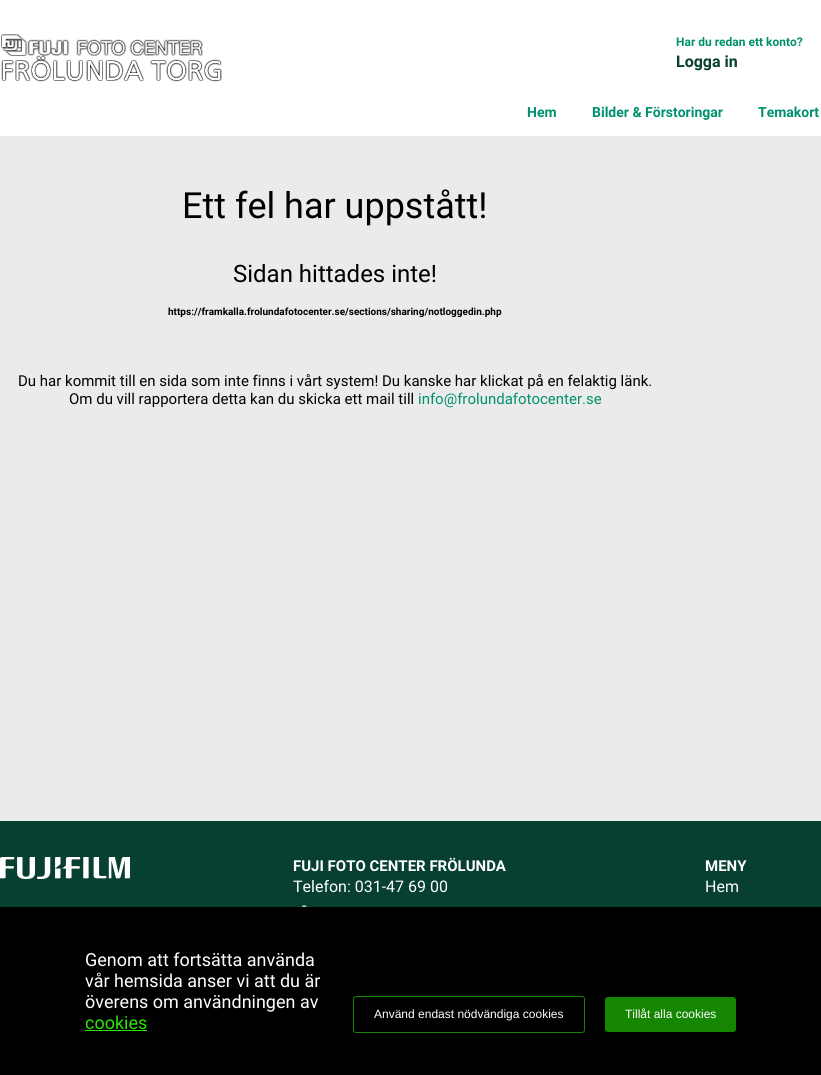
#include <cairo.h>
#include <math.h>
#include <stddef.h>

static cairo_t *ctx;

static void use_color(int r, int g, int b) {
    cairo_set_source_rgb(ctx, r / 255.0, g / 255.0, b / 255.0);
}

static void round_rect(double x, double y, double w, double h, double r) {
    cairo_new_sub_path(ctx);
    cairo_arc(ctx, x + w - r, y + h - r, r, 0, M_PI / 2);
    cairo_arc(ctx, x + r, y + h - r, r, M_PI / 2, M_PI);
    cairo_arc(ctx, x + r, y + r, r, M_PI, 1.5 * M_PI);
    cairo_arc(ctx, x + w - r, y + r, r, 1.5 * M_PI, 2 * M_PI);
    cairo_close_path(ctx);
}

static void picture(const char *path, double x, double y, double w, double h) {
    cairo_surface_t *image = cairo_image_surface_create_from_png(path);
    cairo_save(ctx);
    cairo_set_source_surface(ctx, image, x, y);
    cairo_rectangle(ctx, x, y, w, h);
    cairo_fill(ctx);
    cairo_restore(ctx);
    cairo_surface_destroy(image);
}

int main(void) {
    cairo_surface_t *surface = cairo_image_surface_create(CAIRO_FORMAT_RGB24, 821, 1075);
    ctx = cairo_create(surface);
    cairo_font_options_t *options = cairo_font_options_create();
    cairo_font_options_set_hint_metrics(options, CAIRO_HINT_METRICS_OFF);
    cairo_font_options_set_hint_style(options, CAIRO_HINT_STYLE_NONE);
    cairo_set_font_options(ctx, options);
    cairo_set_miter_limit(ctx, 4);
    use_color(235, 235, 235);
    cairo_paint(ctx);
    use_color(255, 255, 255);
    cairo_rectangle(ctx, 0, 0, 821, 136);
    cairo_fill(ctx);
    picture("img1.png", 1, 34, 221, 48);
    cairo_select_font_face(ctx, "Roboto", CAIRO_FONT_SLANT_NORMAL, CAIRO_FONT_WEIGHT_BOLD);
    cairo_set_font_size(ctx, 12);
    use_color(1, 145, 109);
    cairo_move_to(ctx, 676, 46);
    cairo_show_text(ctx, "Har du redan ett konto?");
    cairo_set_font_size(ctx, 16);
    use_color(7, 63, 49);
    cairo_move_to(ctx, 676, 67);
    cairo_show_text(ctx, "Logga in");
    cairo_set_font_size(ctx, 14);
    use_color(1, 145, 109);
    cairo_move_to(ctx, 527, 117);
    cairo_show_text(ctx, "Hem");
    cairo_move_to(ctx, 592, 117);
    cairo_show_text(ctx, "Bilder & Förstoringar");
    cairo_move_to(ctx, 758, 117);
    cairo_show_text(ctx, "Temakort");
    cairo_select_font_face(ctx, "Roboto", CAIRO_FONT_SLANT_NORMAL, CAIRO_FONT_WEIGHT_NORMAL);
    cairo_set_font_size(ctx, 36);
    use_color(0, 0, 0);
    cairo_move_to(ctx, 182, 218);
    cairo_show_text(ctx, "Ett fel har uppstått!");
    cairo_set_font_size(ctx, 24);
    cairo_move_to(ctx, 233, 282);
    cairo_show_text(ctx, "Sidan hittades inte!");
    cairo_select_font_face(ctx, "Roboto", CAIRO_FONT_SLANT_NORMAL, CAIRO_FONT_WEIGHT_BOLD);
    cairo_set_font_size(ctx, 10);
    cairo_move_to(ctx, 168, 315);
    cairo_show_text(ctx, "https://framkalla.frolundafotocenter.se/sections/sharing/notloggedin.php");
    cairo_select_font_face(ctx, "Roboto", CAIRO_FONT_SLANT_NORMAL, CAIRO_FONT_WEIGHT_NORMAL);
    cairo_set_font_size(ctx, 15);
    cairo_move_to(ctx, 18, 386);
    cairo_show_text(ctx, "Du har kommit till en sida som inte finns i vårt system! Du kanske har klickat på en felaktig länk.");
    cairo_move_to(ctx, 69, 404);
    cairo_show_text(ctx, "Om du vill rapportera detta kan du skicka ett mail till");
    use_color(1, 145, 109);
    cairo_move_to(ctx, 418, 404);
    cairo_show_text(ctx, "info@frolundafotocenter.se");
    use_color(7, 63, 49);
    cairo_rectangle(ctx, 0, 821, 821, 86);
    cairo_fill(ctx);
    picture("img2.png", 0, 857, 130, 22);
    cairo_select_font_face(ctx, "Roboto", CAIRO_FONT_SLANT_NORMAL, CAIRO_FONT_WEIGHT_BOLD);
    use_color(255, 255, 255);
    cairo_move_to(ctx, 293, 871);
    cairo_show_text(ctx, "FUJI FOTO CENTER FRÖLUNDA");
    cairo_select_font_face(ctx, "Roboto", CAIRO_FONT_SLANT_NORMAL, CAIRO_FONT_WEIGHT_NORMAL);
    cairo_set_font_size(ctx, 16);
    cairo_move_to(ctx, 293, 892);
    cairo_show_text(ctx, "Telefon: 031-47 69 00");
    cairo_move_to(ctx, 302, 911);
    cairo_show_text(ctx, "-");
    cairo_select_font_face(ctx, "Roboto", CAIRO_FONT_SLANT_NORMAL, CAIRO_FONT_WEIGHT_BOLD);
    cairo_set_font_size(ctx, 15);
    cairo_move_to(ctx, 705, 871);
    cairo_show_text(ctx, "MENY");
    cairo_select_font_face(ctx, "Roboto", CAIRO_FONT_SLANT_NORMAL, CAIRO_FONT_WEIGHT_NORMAL);
    cairo_set_font_size(ctx, 16);
    cairo_move_to(ctx, 705, 892);
    cairo_show_text(ctx, "Hem");
    use_color(0, 0, 0);
    cairo_rectangle(ctx, 0, 907, 821, 168);
    cairo_fill(ctx);
    cairo_set_font_size(ctx, 18);
    use_color(255, 255, 255);
    cairo_move_to(ctx, 85, 966);
    cairo_show_text(ctx, "Genom att fortsätta använda");
    cairo_move_to(ctx, 85, 987);
    cairo_show_text(ctx, "vår hemsida anser vi att du är");
    cairo_move_to(ctx, 85, 1008);
    cairo_show_text(ctx, "överens om användningen av");
    use_color(43, 229, 8);
    cairo_move_to(ctx, 85, 1029);
    cairo_show_text(ctx, "cookies");
    cairo_rectangle(ctx, 85, 1030, 62, 1);
    cairo_fill(ctx);
    round_rect(353.5, 996.5, 231, 36, 2.5);
    use_color(21, 134, 2);
    cairo_set_line_width(ctx, 1);
    cairo_stroke(ctx);
    cairo_select_font_face(ctx, "Liberation Sans", CAIRO_FONT_SLANT_NORMAL, CAIRO_FONT_WEIGHT_NORMAL);
    cairo_set_font_size(ctx, 12);
    use_color(255, 255, 255);
    cairo_move_to(ctx, 374, 1018);
    cairo_show_text(ctx, "Använd endast nödvändiga cookies");
    use_color(21, 134, 2);
    round_rect(605, 997, 131, 35, 3);
    cairo_fill(ctx);
    use_color(255, 255, 255);
    cairo_move_to(ctx, 625, 1018);
    cairo_show_text(ctx, "Tillåt alla cookies");
    cairo_surface_write_to_png(surface, "result.png");
    cairo_font_options_destroy(options);
    cairo_destroy(ctx);
    cairo_surface_destroy(surface);
    return 0;
}
